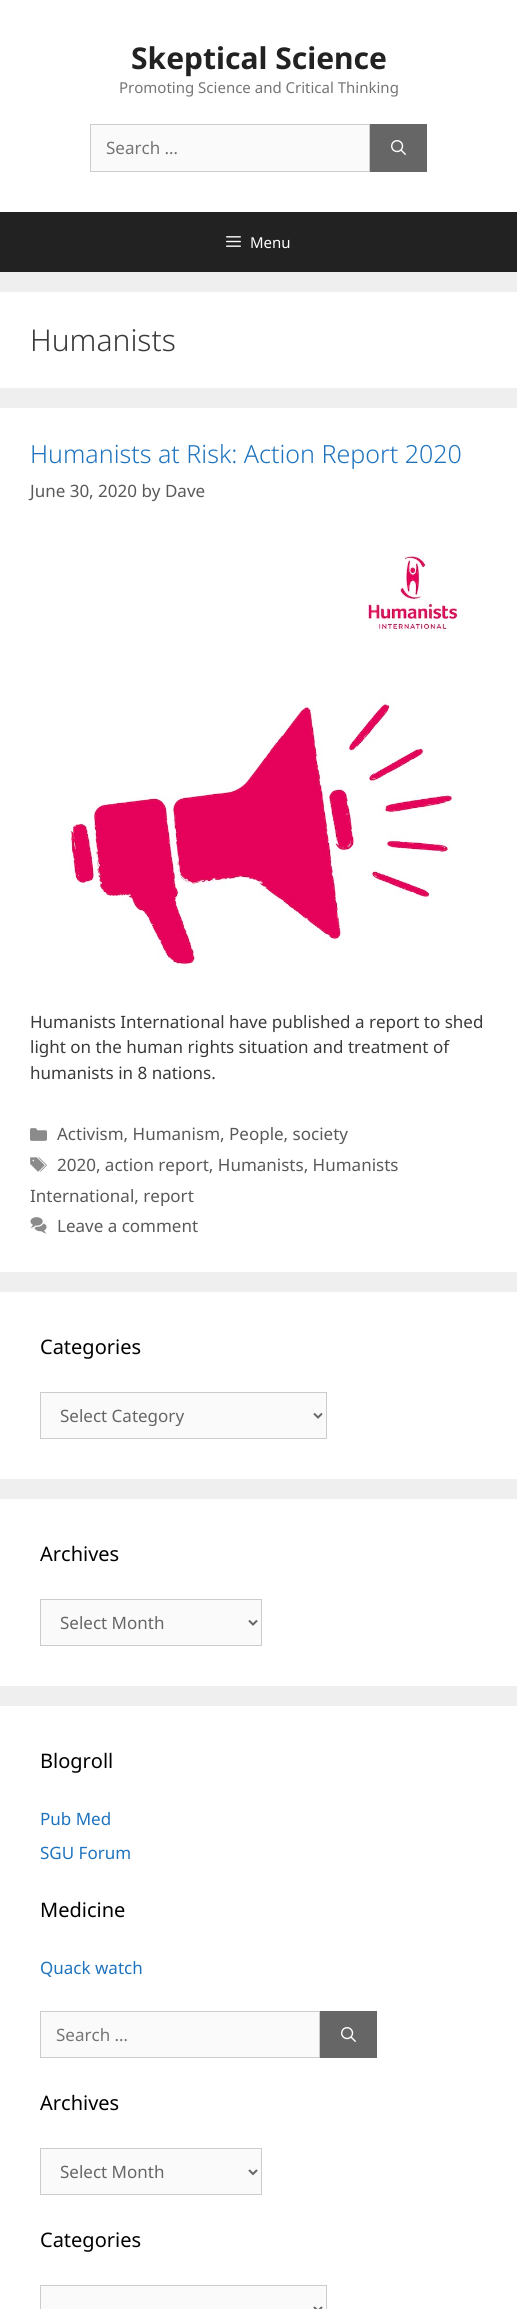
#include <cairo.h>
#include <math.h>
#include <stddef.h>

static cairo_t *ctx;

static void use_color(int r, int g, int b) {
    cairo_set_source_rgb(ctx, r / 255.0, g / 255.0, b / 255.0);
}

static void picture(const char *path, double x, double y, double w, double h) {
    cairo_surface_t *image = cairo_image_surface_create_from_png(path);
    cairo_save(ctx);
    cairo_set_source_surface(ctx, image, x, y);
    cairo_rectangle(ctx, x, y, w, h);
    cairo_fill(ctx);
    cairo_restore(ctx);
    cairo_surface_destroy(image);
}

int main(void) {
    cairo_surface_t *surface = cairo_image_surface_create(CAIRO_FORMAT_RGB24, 517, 2309);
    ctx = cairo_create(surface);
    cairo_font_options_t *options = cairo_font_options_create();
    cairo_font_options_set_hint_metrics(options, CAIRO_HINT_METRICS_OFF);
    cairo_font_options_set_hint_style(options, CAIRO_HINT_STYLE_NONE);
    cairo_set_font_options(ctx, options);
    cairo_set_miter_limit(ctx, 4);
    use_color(239, 239, 239);
    cairo_paint(ctx);
    use_color(255, 255, 255);
    cairo_rectangle(ctx, 0, 0, 517, 212);
    cairo_fill(ctx);
    cairo_select_font_face(ctx, "Noto Sans", CAIRO_FONT_SLANT_NORMAL, CAIRO_FONT_WEIGHT_BOLD);
    cairo_set_font_size(ctx, 30);
    use_color(34, 34, 34);
    cairo_move_to(ctx, 131, 69);
    cairo_show_text(ctx, "Skeptical Science");
    cairo_select_font_face(ctx, "Noto Sans", CAIRO_FONT_SLANT_NORMAL, CAIRO_FONT_WEIGHT_NORMAL);
    cairo_set_font_size(ctx, 15);
    use_color(117, 117, 117);
    cairo_move_to(ctx, 119, 93);
    cairo_show_text(ctx, "Promoting Science and Critical Thinking");
    use_color(250, 250, 250);
    cairo_rectangle(ctx, 90.5, 124.5, 279, 47);
    cairo_fill_preserve(ctx);
    use_color(204, 204, 204);
    cairo_set_line_width(ctx, 1);
    cairo_stroke(ctx);
    cairo_set_font_size(ctx, 17);
    use_color(117, 117, 117);
    cairo_move_to(ctx, 106, 154);
    cairo_show_text(ctx, "Search …");
    use_color(102, 102, 102);
    cairo_rectangle(ctx, 370, 124, 57, 48);
    cairo_fill(ctx);
    picture("img1.png", 391, 140, 15, 15);
    use_color(34, 34, 34);
    cairo_rectangle(ctx, 0, 212, 517, 60);
    cairo_fill(ctx);
    picture("img2.png", 226, 236, 15, 11);
    cairo_set_font_size(ctx, 15);
    use_color(255, 255, 255);
    cairo_move_to(ctx, 250, 248);
    cairo_show_text(ctx, "Menu");
    cairo_rectangle(ctx, 0, 292, 517, 96);
    cairo_fill(ctx);
    cairo_select_font_face(ctx, "Noto Sans Light", CAIRO_FONT_SLANT_NORMAL, CAIRO_FONT_WEIGHT_NORMAL);
    cairo_set_font_size(ctx, 30);
    use_color(58, 58, 58);
    cairo_move_to(ctx, 30, 351);
    cairo_show_text(ctx, "Humanists");
    use_color(255, 255, 255);
    cairo_rectangle(ctx, 0, 408, 517, 864);
    cairo_fill(ctx);
    cairo_set_font_size(ctx, 25);
    use_color(30, 115, 190);
    cairo_move_to(ctx, 30, 463);
    cairo_show_text(ctx, "Humanists at Risk: Action Report 2020");
    cairo_select_font_face(ctx, "Noto Sans", CAIRO_FONT_SLANT_NORMAL, CAIRO_FONT_WEIGHT_NORMAL);
    cairo_set_font_size(ctx, 17);
    use_color(89, 89, 89);
    cairo_move_to(ctx, 30, 497);
    cairo_show_text(ctx, "June 30, 2020 by Dave");
    picture("img3.png", 67, 552, 392, 416);
    use_color(58, 58, 58);
    cairo_move_to(ctx, 30, 1028);
    cairo_show_text(ctx, "Humanists International have published a report to shed");
    cairo_move_to(ctx, 30, 1053);
    cairo_show_text(ctx, "light on the human rights situation and treatment of");
    cairo_move_to(ctx, 30, 1079);
    cairo_show_text(ctx, "humanists in 8 nations.");
    picture("img4.png", 30, 1128, 17, 13);
    use_color(89, 89, 89);
    cairo_move_to(ctx, 57, 1140);
    cairo_show_text(ctx, "Activism, Humanism, People, society");
    picture("img5.png", 30, 1157, 17, 15);
    cairo_move_to(ctx, 57, 1171);
    cairo_show_text(ctx, "2020, action report, Humanists, Humanists");
    cairo_move_to(ctx, 30, 1202);
    cairo_show_text(ctx, "International, report");
    picture("img6.png", 30, 1217, 17, 17);
    cairo_move_to(ctx, 57, 1232);
    cairo_show_text(ctx, "Leave a comment");
    use_color(255, 255, 255);
    cairo_rectangle(ctx, 0, 1292, 517, 187);
    cairo_fill(ctx);
    cairo_set_font_size(ctx, 20);
    use_color(0, 0, 0);
    cairo_move_to(ctx, 40, 1354);
    cairo_show_text(ctx, "Categories");
    use_color(250, 250, 250);
    cairo_rectangle(ctx, 40.5, 1392.5, 286, 46);
    cairo_fill_preserve(ctx);
    use_color(204, 204, 204);
    cairo_stroke(ctx);
    cairo_new_path(ctx);
    cairo_move_to(ctx, 314, 1413.5);
    cairo_line_to(ctx, 318, 1417.5);
    cairo_line_to(ctx, 322, 1413.5);
    use_color(102, 102, 102);
    cairo_set_line_width(ctx, 2);
    cairo_stroke(ctx);
    cairo_set_font_size(ctx, 17);
    cairo_move_to(ctx, 60, 1422);
    cairo_show_text(ctx, "Select Category");
    use_color(255, 255, 255);
    cairo_rectangle(ctx, 0, 1499, 517, 187);
    cairo_fill(ctx);
    cairo_set_font_size(ctx, 20);
    use_color(0, 0, 0);
    cairo_move_to(ctx, 40, 1561);
    cairo_show_text(ctx, "Archives");
    use_color(250, 250, 250);
    cairo_rectangle(ctx, 40.5, 1599.5, 221, 46);
    cairo_fill_preserve(ctx);
    use_color(204, 204, 204);
    cairo_set_line_width(ctx, 1);
    cairo_stroke(ctx);
    cairo_new_path(ctx);
    cairo_move_to(ctx, 249, 1620.5);
    cairo_line_to(ctx, 253, 1624.5);
    cairo_line_to(ctx, 257, 1620.5);
    use_color(102, 102, 102);
    cairo_set_line_width(ctx, 2);
    cairo_stroke(ctx);
    cairo_set_font_size(ctx, 17);
    cairo_move_to(ctx, 60, 1629);
    cairo_show_text(ctx, "Select Month");
    use_color(255, 255, 255);
    cairo_rectangle(ctx, 0, 1706, 517, 603);
    cairo_fill(ctx);
    cairo_set_font_size(ctx, 20);
    use_color(0, 0, 0);
    cairo_move_to(ctx, 40, 1768);
    cairo_show_text(ctx, "Blogroll");
    cairo_set_font_size(ctx, 17);
    use_color(30, 115, 190);
    cairo_move_to(ctx, 40, 1825);
    cairo_show_text(ctx, "Pub Med");
    cairo_move_to(ctx, 40, 1859);
    cairo_show_text(ctx, "SGU Forum");
    cairo_set_font_size(ctx, 20);
    use_color(0, 0, 0);
    cairo_move_to(ctx, 40, 1917);
    cairo_show_text(ctx, "Medicine");
    cairo_set_font_size(ctx, 17);
    use_color(30, 115, 190);
    cairo_move_to(ctx, 40, 1974);
    cairo_show_text(ctx, "Quack watch");
    use_color(250, 250, 250);
    cairo_rectangle(ctx, 40.5, 2011.5, 279, 46);
    cairo_fill_preserve(ctx);
    use_color(204, 204, 204);
    cairo_set_line_width(ctx, 1);
    cairo_stroke(ctx);
    use_color(117, 117, 117);
    cairo_move_to(ctx, 56, 2041);
    cairo_show_text(ctx, "Search …");
    use_color(102, 102, 102);
    cairo_rectangle(ctx, 320, 2011, 57, 47);
    cairo_fill(ctx);
    picture("img1.png", 341, 2027, 15, 15);
    cairo_set_font_size(ctx, 20);
    use_color(0, 0, 0);
    cairo_move_to(ctx, 40, 2110);
    cairo_show_text(ctx, "Archives");
    use_color(250, 250, 250);
    cairo_rectangle(ctx, 40.5, 2148.5, 221, 46);
    cairo_fill_preserve(ctx);
    use_color(204, 204, 204);
    cairo_stroke(ctx);
    cairo_new_path(ctx);
    cairo_move_to(ctx, 249, 2170);
    cairo_line_to(ctx, 253, 2174);
    cairo_line_to(ctx, 257, 2170);
    use_color(102, 102, 102);
    cairo_set_line_width(ctx, 2);
    cairo_stroke(ctx);
    cairo_set_font_size(ctx, 17);
    cairo_move_to(ctx, 60, 2178);
    cairo_show_text(ctx, "Select Month");
    cairo_set_font_size(ctx, 20);
    use_color(0, 0, 0);
    cairo_move_to(ctx, 40, 2247);
    cairo_show_text(ctx, "Categories");
    use_color(250, 250, 250);
    cairo_rectangle(ctx, 40.5, 2285.5, 286, 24);
    cairo_fill_preserve(ctx);
    use_color(204, 204, 204);
    cairo_set_line_width(ctx, 1);
    cairo_stroke(ctx);
    cairo_new_path(ctx);
    cairo_move_to(ctx, 314, 2307);
    cairo_line_to(ctx, 318, 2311);
    cairo_line_to(ctx, 322, 2307);
    use_color(102, 102, 102);
    cairo_set_line_width(ctx, 2);
    cairo_stroke(ctx);
    cairo_surface_write_to_png(surface, "result.png");
    cairo_font_options_destroy(options);
    cairo_destroy(ctx);
    cairo_surface_destroy(surface);
    return 0;
}
